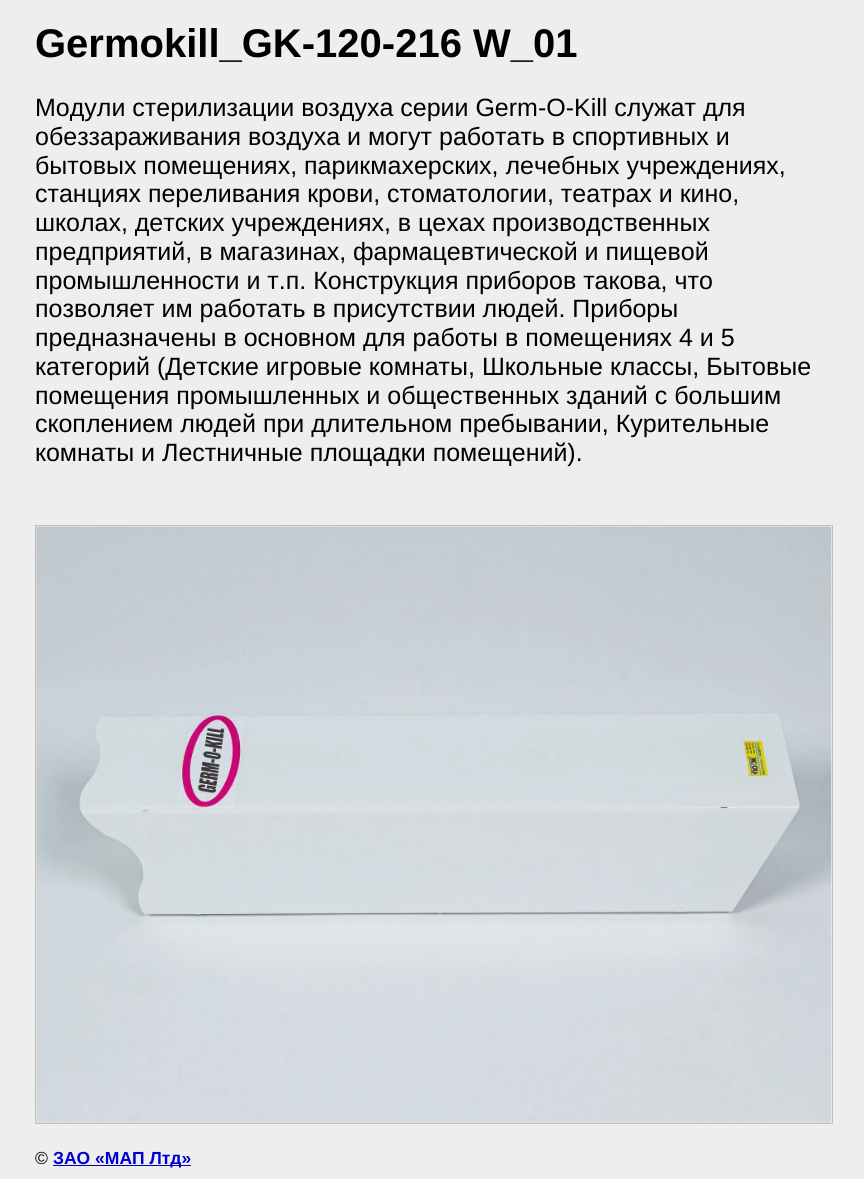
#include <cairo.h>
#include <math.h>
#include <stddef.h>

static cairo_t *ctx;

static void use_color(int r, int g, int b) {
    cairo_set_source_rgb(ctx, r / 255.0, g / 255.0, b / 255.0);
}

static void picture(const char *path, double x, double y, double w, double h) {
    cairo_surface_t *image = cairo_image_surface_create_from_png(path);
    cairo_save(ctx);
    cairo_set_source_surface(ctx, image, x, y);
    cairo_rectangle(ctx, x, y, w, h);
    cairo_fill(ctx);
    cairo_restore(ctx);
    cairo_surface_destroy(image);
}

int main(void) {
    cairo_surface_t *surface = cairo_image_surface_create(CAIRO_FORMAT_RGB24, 864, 1179);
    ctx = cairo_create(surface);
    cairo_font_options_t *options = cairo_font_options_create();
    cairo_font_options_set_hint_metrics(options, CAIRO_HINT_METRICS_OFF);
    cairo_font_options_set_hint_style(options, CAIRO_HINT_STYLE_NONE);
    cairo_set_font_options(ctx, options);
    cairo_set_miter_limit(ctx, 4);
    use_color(238, 238, 238);
    cairo_paint(ctx);
    cairo_select_font_face(ctx, "Liberation Sans", CAIRO_FONT_SLANT_NORMAL, CAIRO_FONT_WEIGHT_BOLD);
    cairo_set_font_size(ctx, 40);
    use_color(0, 0, 0);
    cairo_move_to(ctx, 35, 57);
    cairo_show_text(ctx, "Germokill_GK-120-216 W_01");
    cairo_select_font_face(ctx, "Liberation Sans", CAIRO_FONT_SLANT_NORMAL, CAIRO_FONT_WEIGHT_NORMAL);
    cairo_set_font_size(ctx, 25);
    cairo_move_to(ctx, 35, 116);
    cairo_show_text(ctx, "Модули стерилизации воздуха серии Germ-O-Kill служат для");
    cairo_move_to(ctx, 35, 145);
    cairo_show_text(ctx, "обеззараживания воздуха и могут работать в спортивных и");
    cairo_move_to(ctx, 35, 174);
    cairo_show_text(ctx, "бытовых помещениях, парикмахерских, лечебных учреждениях,");
    cairo_move_to(ctx, 35, 202);
    cairo_show_text(ctx, "станциях переливания крови, стоматологии, театрах и кино,");
    cairo_move_to(ctx, 35, 231);
    cairo_show_text(ctx, "школах, детских учреждениях, в цехах производственных");
    cairo_move_to(ctx, 35, 260);
    cairo_show_text(ctx, "предприятий, в магазинах, фармацевтической и пищевой");
    cairo_move_to(ctx, 35, 289);
    cairo_show_text(ctx, "промышленности и т.п. Конструкция приборов такова, что");
    cairo_move_to(ctx, 35, 317);
    cairo_show_text(ctx, "позволяет им работать в присутствии людей. Приборы");
    cairo_move_to(ctx, 35, 346);
    cairo_show_text(ctx, "предназначены в основном для работы в помещениях 4 и 5");
    cairo_move_to(ctx, 35, 375);
    cairo_show_text(ctx, "категорий (Детские игровые комнаты, Школьные классы, Бытовые");
    cairo_move_to(ctx, 35, 404);
    cairo_show_text(ctx, "помещения промышленных и общественных зданий с большим");
    cairo_move_to(ctx, 35, 432);
    cairo_show_text(ctx, "скоплением людей при длительном пребывании, Курительные");
    cairo_move_to(ctx, 35, 461);
    cairo_show_text(ctx, "комнаты и Лестничные площадки помещений).");
    cairo_rectangle(ctx, 35.5, 525.5, 797, 598);
    use_color(192, 192, 192);
    cairo_set_line_width(ctx, 1);
    cairo_stroke(ctx);
    picture("img1.png", 36, 526, 796, 597);
    cairo_set_font_size(ctx, 17.5);
    use_color(0, 0, 0);
    cairo_move_to(ctx, 35, 1164);
    cairo_show_text(ctx, "©");
    use_color(0, 0, 204);
    cairo_rectangle(ctx, 53, 1165, 138, 1);
    cairo_fill(ctx);
    cairo_select_font_face(ctx, "Liberation Sans", CAIRO_FONT_SLANT_NORMAL, CAIRO_FONT_WEIGHT_BOLD);
    cairo_move_to(ctx, 53, 1164);
    cairo_show_text(ctx, "ЗАО «МАП Лтд»");
    cairo_surface_write_to_png(surface, "result.png");
    cairo_font_options_destroy(options);
    cairo_destroy(ctx);
    cairo_surface_destroy(surface);
    return 0;
}
